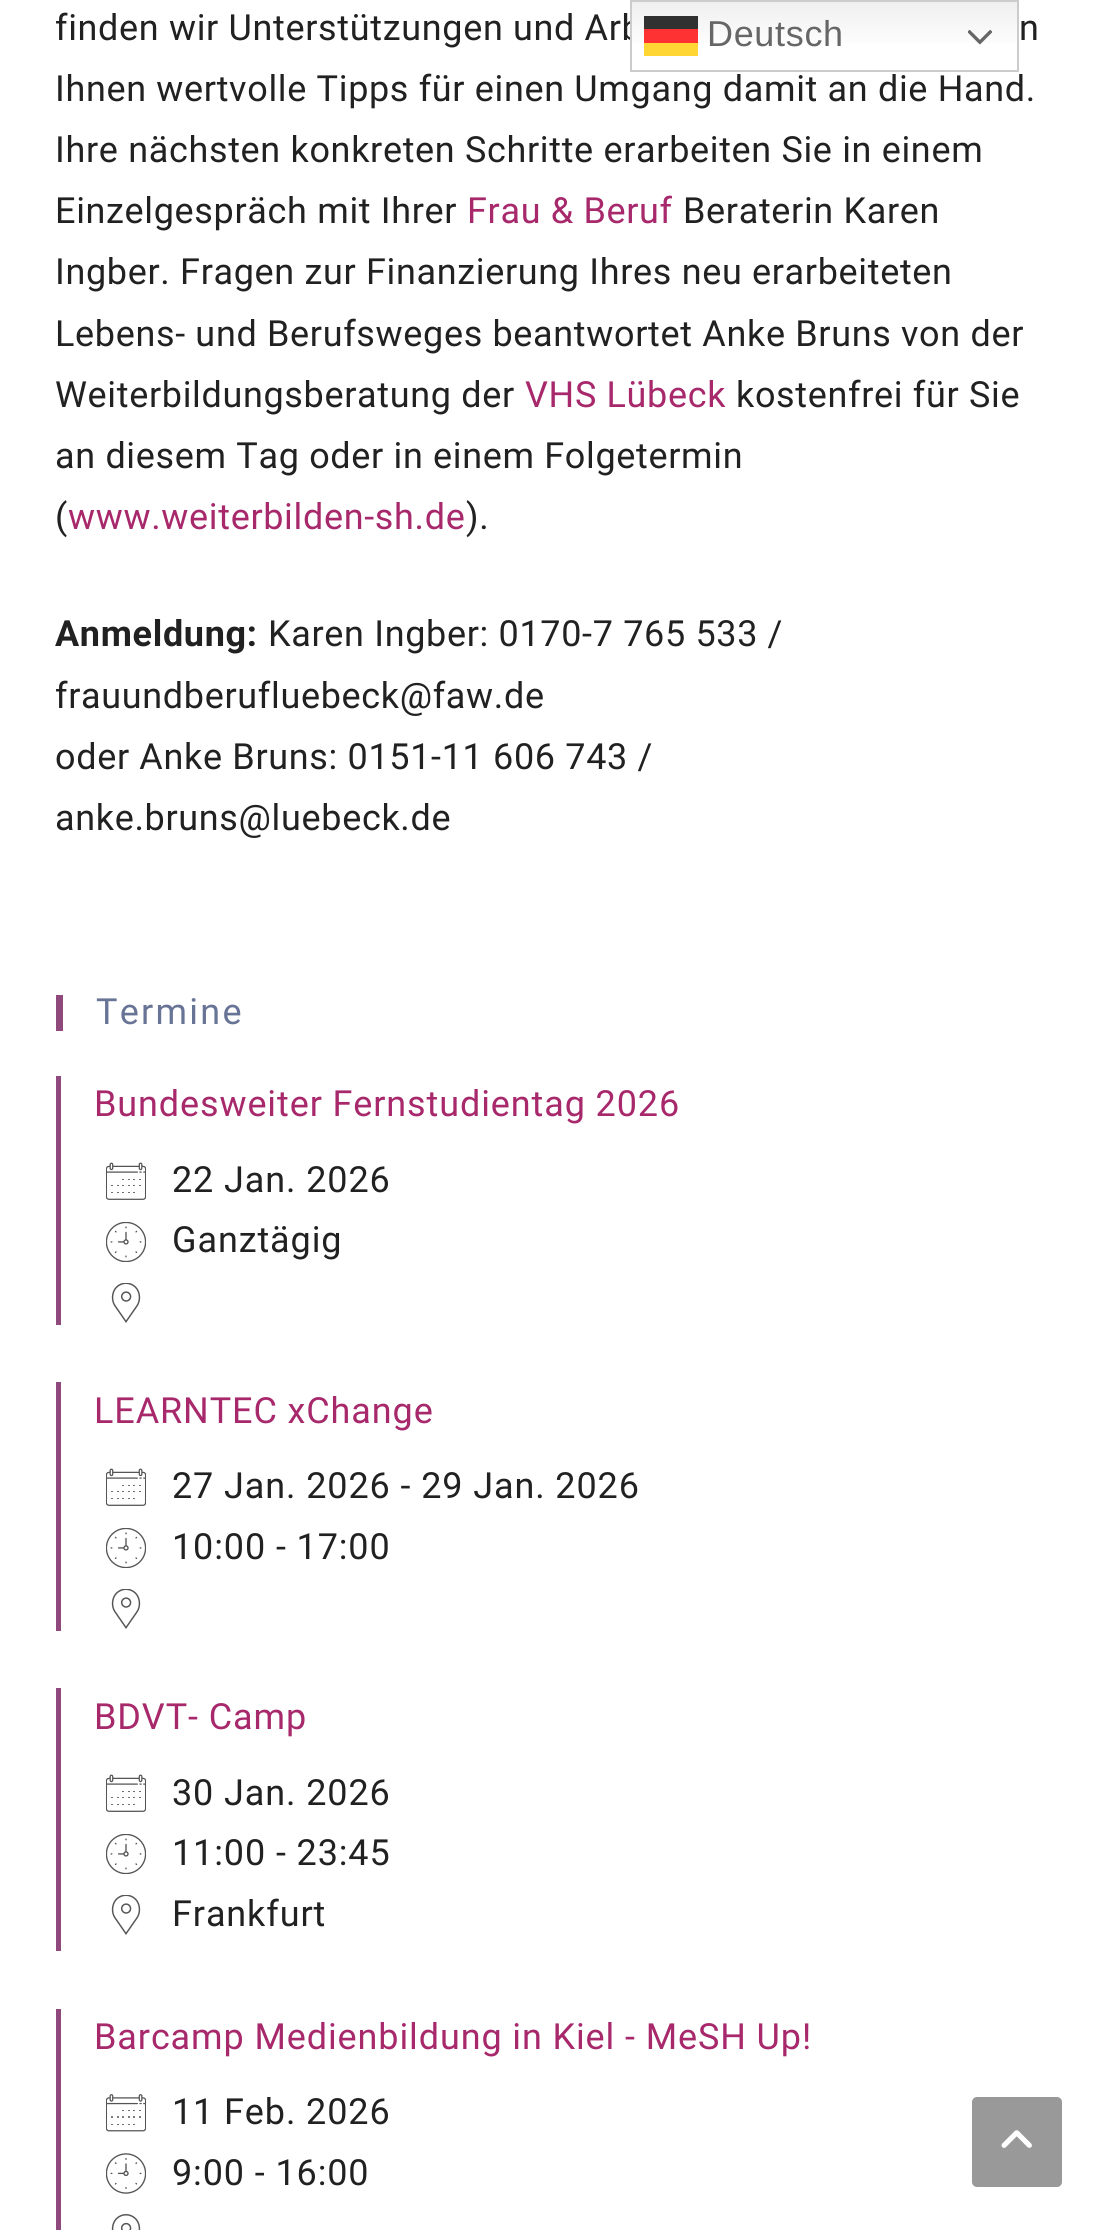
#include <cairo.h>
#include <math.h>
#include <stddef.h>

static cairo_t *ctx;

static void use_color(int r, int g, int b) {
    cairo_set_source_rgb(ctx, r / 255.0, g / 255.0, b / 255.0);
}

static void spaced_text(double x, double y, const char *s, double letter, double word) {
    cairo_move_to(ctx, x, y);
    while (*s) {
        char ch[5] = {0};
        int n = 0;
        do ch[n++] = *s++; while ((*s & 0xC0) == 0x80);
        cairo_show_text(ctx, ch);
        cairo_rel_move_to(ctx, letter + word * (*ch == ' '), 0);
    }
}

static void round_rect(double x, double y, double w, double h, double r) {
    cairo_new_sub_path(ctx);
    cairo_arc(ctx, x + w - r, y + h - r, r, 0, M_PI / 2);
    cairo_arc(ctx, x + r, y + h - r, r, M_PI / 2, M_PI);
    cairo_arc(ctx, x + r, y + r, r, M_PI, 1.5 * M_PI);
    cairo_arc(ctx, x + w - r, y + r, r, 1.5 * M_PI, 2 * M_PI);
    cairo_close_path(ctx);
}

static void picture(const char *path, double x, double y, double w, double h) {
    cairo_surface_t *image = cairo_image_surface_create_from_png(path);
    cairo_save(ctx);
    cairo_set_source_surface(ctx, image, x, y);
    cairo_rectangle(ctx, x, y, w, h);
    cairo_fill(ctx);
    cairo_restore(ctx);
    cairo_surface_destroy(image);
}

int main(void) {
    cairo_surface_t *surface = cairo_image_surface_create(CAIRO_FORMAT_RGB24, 1106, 2230);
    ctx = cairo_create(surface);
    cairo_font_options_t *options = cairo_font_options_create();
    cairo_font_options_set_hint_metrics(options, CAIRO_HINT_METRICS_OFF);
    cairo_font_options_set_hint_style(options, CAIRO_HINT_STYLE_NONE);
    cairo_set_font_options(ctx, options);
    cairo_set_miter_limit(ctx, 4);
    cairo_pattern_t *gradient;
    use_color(255, 255, 255);
    cairo_paint(ctx);
    cairo_select_font_face(ctx, "Roboto", CAIRO_FONT_SLANT_NORMAL, CAIRO_FONT_WEIGHT_NORMAL);
    cairo_set_font_size(ctx, 36);
    use_color(33, 33, 33);
    spaced_text(55, 40, "finden wir Unterstützungen und Arb", 0.67, 0);
    spaced_text(1019, 40, "n", 0.67, 0);
    spaced_text(55, 101, "Ihnen wertvolle Tipps für einen Umgang damit an die Hand.", 0.67, 0);
    spaced_text(55, 162, "Ihre nächsten konkreten Schritte erarbeiten Sie in einem", 0.67, 0);
    spaced_text(55, 223, "Einzelgespräch mit Ihrer", 0.67, 0);
    use_color(167, 40, 107);
    spaced_text(467, 223, "Frau & Beruf", 0.67, 0);
    use_color(33, 33, 33);
    spaced_text(683, 223, "Beraterin Karen", 0.67, 0);
    spaced_text(55, 284, "Ingber. Fragen zur Finanzierung Ihres neu erarbeiteten", 0.67, 0);
    spaced_text(55, 346, "Lebens- und Berufsweges beantwortet Anke Bruns von der", 0.67, 0);
    spaced_text(55, 407, "Weiterbildungsberatung der", 0.67, 0);
    use_color(167, 40, 107);
    spaced_text(525, 407, "VHS Lübeck", 0.67, 0);
    use_color(33, 33, 33);
    spaced_text(736, 407, "kostenfrei für Sie", 0.67, 0);
    spaced_text(55, 468, "an diesem Tag oder in einem Folgetermin", 0.67, 0);
    spaced_text(55, 529, "(", 0.67, 0);
    use_color(167, 40, 107);
    spaced_text(68, 529, "www.weiterbilden-sh.de", 0.67, 0);
    use_color(33, 33, 33);
    spaced_text(466, 529, ").", 0.67, 0);
    cairo_select_font_face(ctx, "Roboto", CAIRO_FONT_SLANT_NORMAL, CAIRO_FONT_WEIGHT_BOLD);
    spaced_text(55, 646, "Anmeldung:", 0.67, 0);
    cairo_select_font_face(ctx, "Roboto", CAIRO_FONT_SLANT_NORMAL, CAIRO_FONT_WEIGHT_NORMAL);
    spaced_text(268, 646, "Karen Ingber: 0170-7 765 533 /", 0.67, 0);
    spaced_text(55, 708, "frauundberufluebeck@faw.de", 0.67, 0);
    spaced_text(55, 769, "oder Anke Bruns: 0151-11 606 743 /", 0.67, 0);
    spaced_text(55, 830, "anke.bruns@luebeck.de", 0.67, 0);
    use_color(143, 73, 125);
    cairo_rectangle(ctx, 56, 995, 7, 36);
    cairo_fill(ctx);
    use_color(104, 116, 150);
    spaced_text(96, 1024, "Termine", 2.25, 0);
    use_color(143, 73, 125);
    cairo_rectangle(ctx, 56, 1076, 5, 249);
    cairo_fill(ctx);
    use_color(167, 40, 107);
    spaced_text(94, 1116, "Bundesweiter Fernstudientag 2026", 0.9, 0);
    picture("img1.png", 106, 1162, 40, 38);
    use_color(33, 33, 33);
    spaced_text(172, 1192, "22 Jan. 2026", 0.9, 0);
    picture("img2.png", 106, 1222, 40, 40);
    spaced_text(172, 1252, "Ganztägig", 0.9, 0);
    picture("img3.png", 111, 1283, 30, 40);
    use_color(143, 73, 125);
    cairo_rectangle(ctx, 56, 1382, 5, 249);
    cairo_fill(ctx);
    use_color(167, 40, 107);
    spaced_text(94, 1423, "LEARNTEC xChange", 0.9, 0);
    picture("img1.png", 106, 1468, 40, 38);
    use_color(33, 33, 33);
    spaced_text(172, 1498, "27 Jan. 2026 - 29 Jan. 2026", 0.9, 0);
    picture("img2.png", 106, 1528, 40, 40);
    spaced_text(172, 1559, "10:00 - 17:00", 0.9, 0);
    picture("img3.png", 111, 1589, 30, 40);
    use_color(143, 73, 125);
    cairo_rectangle(ctx, 56, 1688, 5, 263);
    cairo_fill(ctx);
    use_color(167, 40, 107);
    spaced_text(94, 1729, "BDVT- Camp", 0.9, 0);
    picture("img1.png", 106, 1774, 40, 38);
    use_color(33, 33, 33);
    spaced_text(172, 1805, "30 Jan. 2026", 0.9, 0);
    picture("img2.png", 106, 1834, 40, 40);
    spaced_text(172, 1865, "11:00 - 23:45", 0.9, 0);
    picture("img3.png", 111, 1895, 30, 40);
    spaced_text(172, 1926, "Frankfurt", 0.9, 0);
    use_color(143, 73, 125);
    cairo_rectangle(ctx, 56, 2009, 5, 221);
    cairo_fill(ctx);
    use_color(167, 40, 107);
    spaced_text(94, 2049, "Barcamp Medienbildung in Kiel - MeSH Up!", 0.9, 0);
    picture("img4.png", 106, 2094, 40, 38);
    use_color(33, 33, 33);
    spaced_text(172, 2124, "11 Feb. 2026", 0.9, 0);
    picture("img5.png", 106, 2153, 40, 41);
    spaced_text(172, 2185, "9:00 - 16:00", 0.9, 0);
    picture("img6.png", 111, 2214, 30, 16);
    gradient = cairo_pattern_create_linear(825, 0, 825, 72);
    cairo_pattern_add_color_stop_rgba(gradient, 0, 0.937, 0.937, 0.937, 1);
    cairo_pattern_add_color_stop_rgba(gradient, 0.7, 1, 1, 1, 1);
    cairo_set_source(ctx, gradient);
    cairo_pattern_destroy(gradient);
    cairo_rectangle(ctx, 632, 2, 385, 41);
    cairo_fill(ctx);
    cairo_rectangle(ctx, 631, 1, 387, 70);
    use_color(204, 204, 204);
    cairo_stroke(ctx);
    cairo_set_source_rgba(ctx, 0, 0, 0, 0.8);
    cairo_rectangle(ctx, 644, 16, 54, 13);
    cairo_fill(ctx);
    cairo_select_font_face(ctx, "Liberation Sans", CAIRO_FONT_SLANT_NORMAL, CAIRO_FONT_WEIGHT_NORMAL);
    use_color(102, 102, 102);
    spaced_text(707, 46, "Deutsch", 0.67, 0);
    cairo_set_source_rgba(ctx, 1, 0, 0, 0.8);
    cairo_rectangle(ctx, 644, 29, 54, 14);
    cairo_fill(ctx);
    picture("img7.png", 968, 30, 24, 15);
    use_color(255, 214, 51);
    cairo_rectangle(ctx, 644, 43, 54, 13);
    cairo_fill(ctx);
    use_color(153, 153, 153);
    round_rect(972, 2097, 90, 90, 5);
    cairo_fill(ctx);
    picture("img8.png", 1001, 2130, 31, 18);
    cairo_surface_write_to_png(surface, "result.png");
    cairo_font_options_destroy(options);
    cairo_destroy(ctx);
    cairo_surface_destroy(surface);
    return 0;
}
